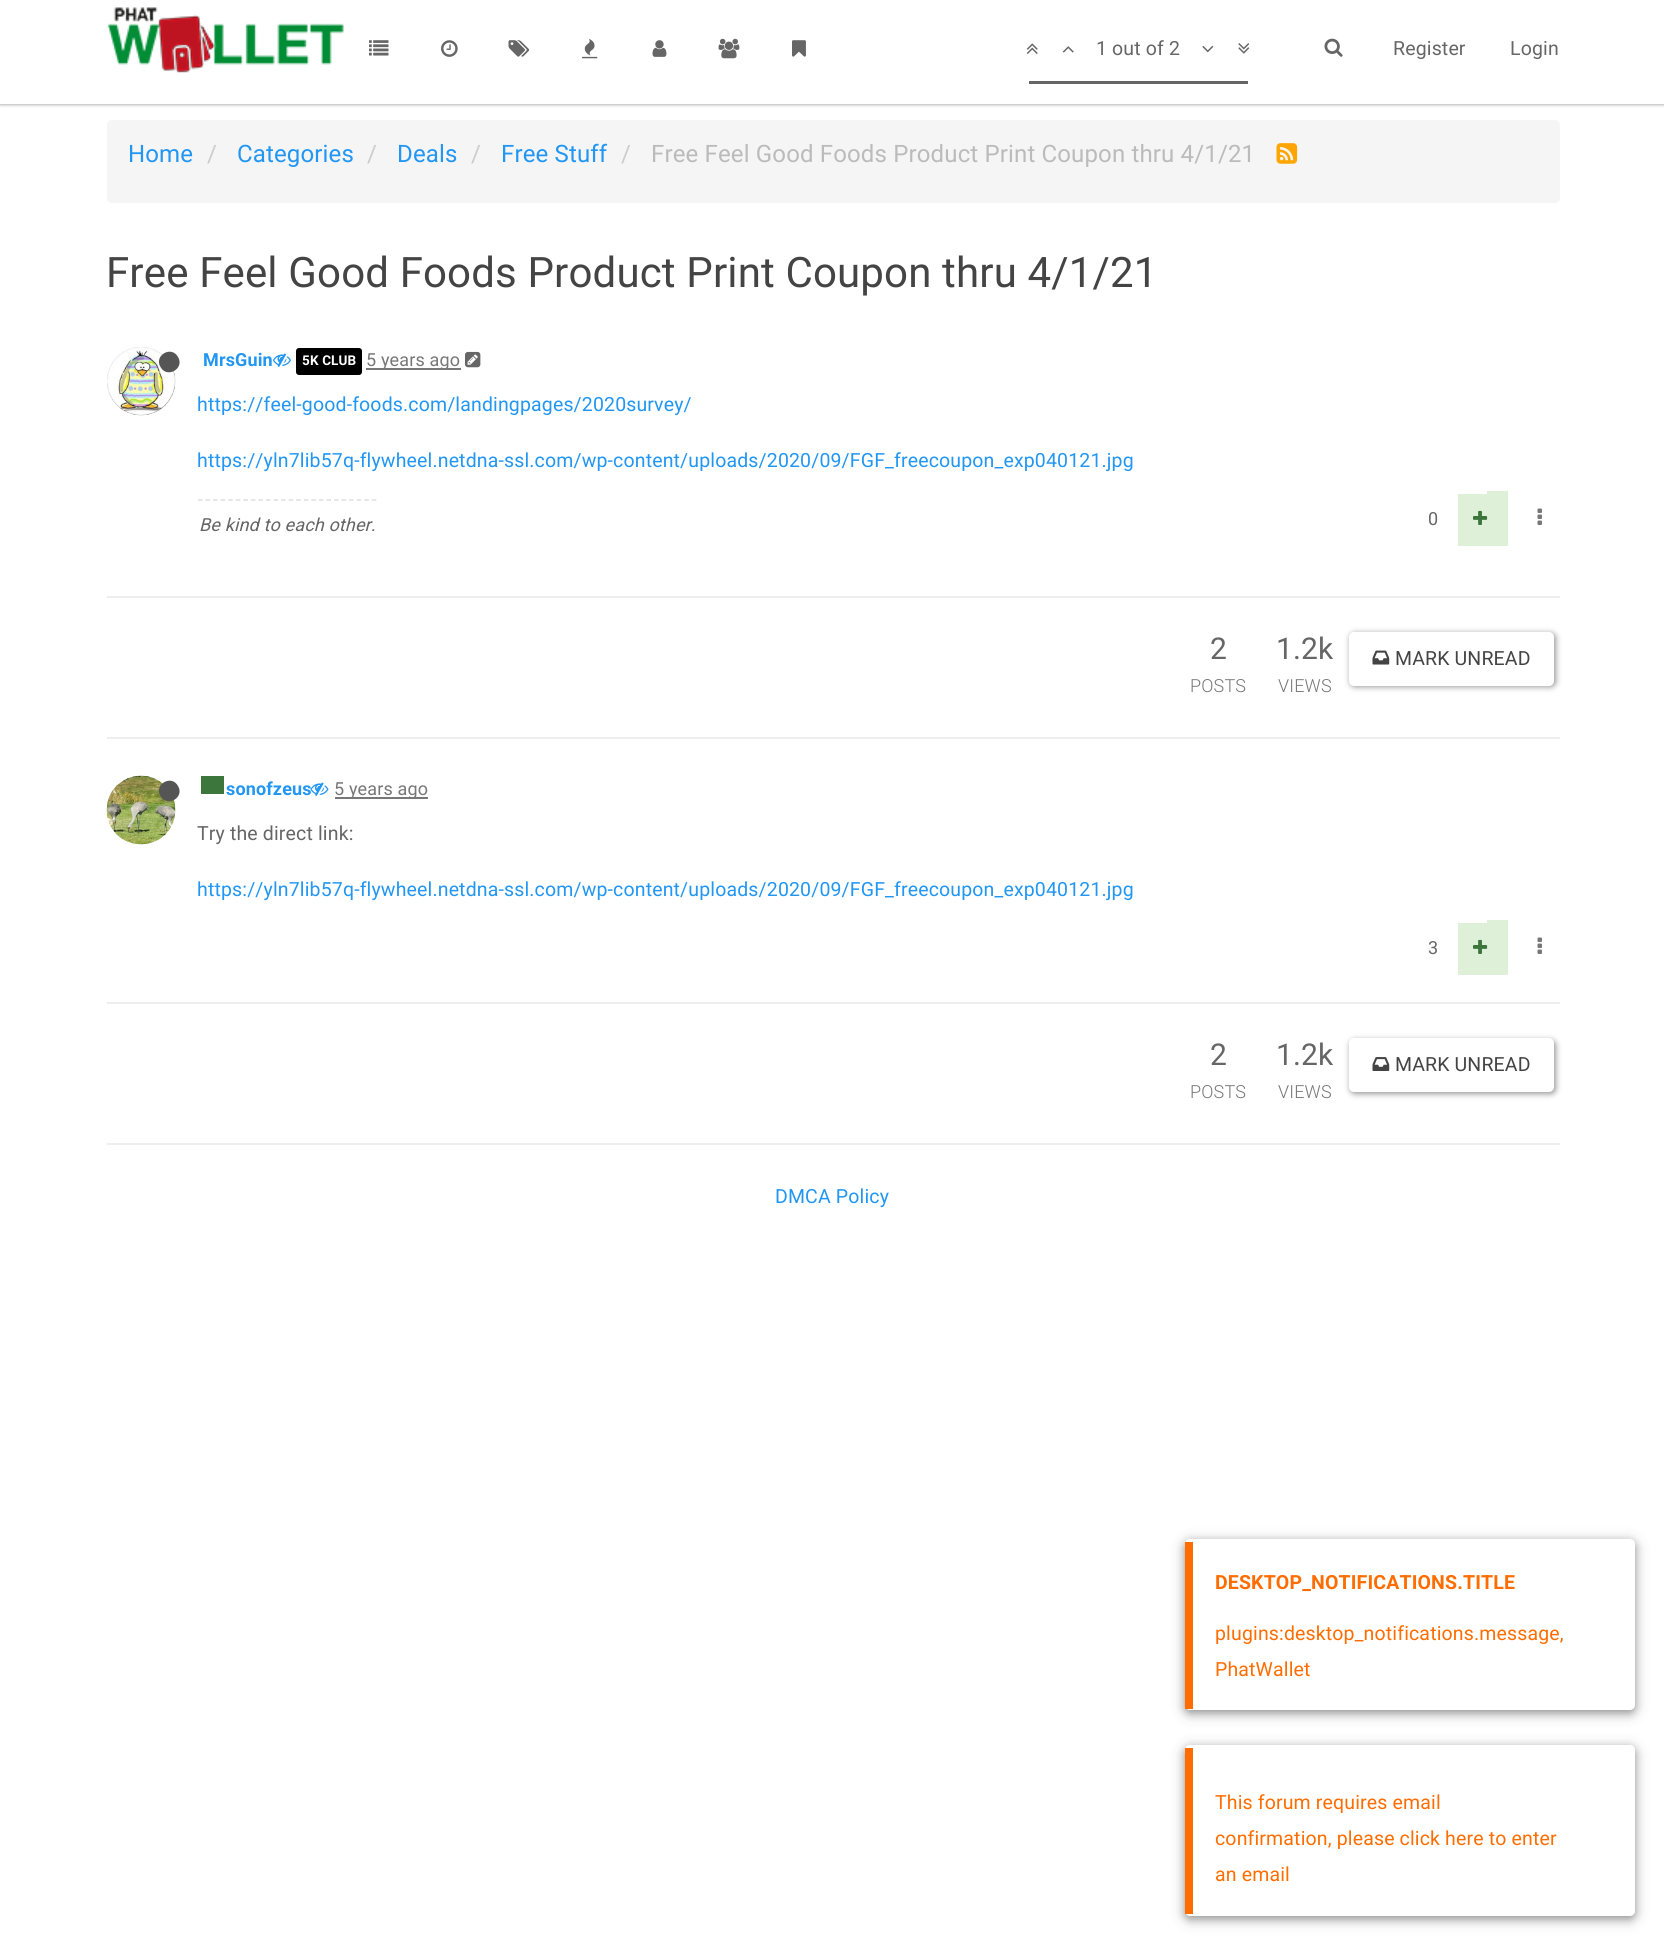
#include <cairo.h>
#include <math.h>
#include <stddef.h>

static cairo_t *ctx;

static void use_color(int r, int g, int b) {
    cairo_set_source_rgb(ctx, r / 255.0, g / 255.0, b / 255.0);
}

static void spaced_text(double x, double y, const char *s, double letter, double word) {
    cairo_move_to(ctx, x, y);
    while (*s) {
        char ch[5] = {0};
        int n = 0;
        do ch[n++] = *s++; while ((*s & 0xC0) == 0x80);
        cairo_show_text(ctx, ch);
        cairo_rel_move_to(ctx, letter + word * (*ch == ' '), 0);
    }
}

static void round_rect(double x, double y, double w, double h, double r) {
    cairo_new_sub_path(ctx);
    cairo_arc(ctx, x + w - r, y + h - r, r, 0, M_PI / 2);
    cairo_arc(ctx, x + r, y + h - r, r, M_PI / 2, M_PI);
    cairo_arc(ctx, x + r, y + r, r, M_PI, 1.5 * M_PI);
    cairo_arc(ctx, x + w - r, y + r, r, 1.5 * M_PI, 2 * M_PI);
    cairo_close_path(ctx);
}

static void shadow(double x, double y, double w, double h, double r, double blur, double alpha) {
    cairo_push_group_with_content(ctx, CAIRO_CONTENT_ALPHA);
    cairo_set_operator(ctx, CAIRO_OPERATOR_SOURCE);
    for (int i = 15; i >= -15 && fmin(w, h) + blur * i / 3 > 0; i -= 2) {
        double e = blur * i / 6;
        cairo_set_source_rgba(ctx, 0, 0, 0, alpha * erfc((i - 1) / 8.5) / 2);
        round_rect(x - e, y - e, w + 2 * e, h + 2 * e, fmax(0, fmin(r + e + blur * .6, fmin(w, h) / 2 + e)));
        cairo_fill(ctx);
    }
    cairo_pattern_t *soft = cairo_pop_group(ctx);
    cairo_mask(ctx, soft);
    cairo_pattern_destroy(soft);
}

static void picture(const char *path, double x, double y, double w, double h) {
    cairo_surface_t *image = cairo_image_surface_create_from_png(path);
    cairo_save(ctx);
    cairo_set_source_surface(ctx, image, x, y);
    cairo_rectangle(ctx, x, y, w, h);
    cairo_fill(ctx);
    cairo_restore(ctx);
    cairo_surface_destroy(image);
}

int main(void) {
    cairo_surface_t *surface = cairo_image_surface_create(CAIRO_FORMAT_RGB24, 1664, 1949);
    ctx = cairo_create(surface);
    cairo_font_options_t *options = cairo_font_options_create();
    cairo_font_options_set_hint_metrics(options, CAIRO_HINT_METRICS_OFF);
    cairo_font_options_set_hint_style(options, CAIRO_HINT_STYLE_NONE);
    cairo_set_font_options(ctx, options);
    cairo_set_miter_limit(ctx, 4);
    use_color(255, 255, 255);
    cairo_paint(ctx);
    use_color(0, 0, 0);
    shadow(0, 2, 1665, 103, 0, 1.5, 0.3);
    use_color(255, 255, 255);
    cairo_rectangle(ctx, 0, 0, 1664, 104);
    cairo_fill(ctx);
    picture("img1.png", 107, 7, 237, 66);
    picture("img2.png", 369, 40, 20, 16);
    picture("img3.png", 441, 40, 17, 17);
    picture("img4.png", 508, 40, 22, 17);
    picture("img5.png", 582, 38, 16, 21);
    picture("img6.png", 652, 40, 15, 17);
    picture("img7.png", 718, 38, 22, 21);
    picture("img8.png", 792, 40, 14, 17);
    picture("img9.png", 1026, 43, 12, 11);
    picture("img10.png", 1062, 46, 12, 7);
    cairo_select_font_face(ctx, "Roboto", CAIRO_FONT_SLANT_NORMAL, CAIRO_FONT_WEIGHT_NORMAL);
    cairo_set_font_size(ctx, 19.5);
    use_color(102, 102, 102);
    spaced_text(1096, 55, "1 out of 2", 0.15, 0);
    picture("img11.png", 1202, 45, 12, 8);
    picture("img12.png", 1238, 43, 12, 11);
    cairo_rectangle(ctx, 1029, 81, 219, 3);
    cairo_fill(ctx);
    picture("img13.png", 1324, 38, 19, 19);
    spaced_text(1393, 55, "Register", 0.15, 0);
    spaced_text(1510, 55, "Login", 0.15, 0);
    use_color(245, 245, 245);
    round_rect(107, 120, 1453, 83, 5);
    cairo_fill(ctx);
    cairo_set_font_size(ctx, 24);
    use_color(33, 150, 243);
    spaced_text(128, 162, "Home", 0.15, 0);
    use_color(204, 204, 204);
    spaced_text(207, 162, "/", 0.15, 0);
    use_color(33, 150, 243);
    spaced_text(237, 162, "Categories", 0.15, 0);
    use_color(204, 204, 204);
    spaced_text(367, 162, "/", 0.15, 0);
    use_color(33, 150, 243);
    spaced_text(397, 162, "Deals", 0.15, 0);
    use_color(204, 204, 204);
    spaced_text(471, 162, "/", 0.15, 0);
    use_color(33, 150, 243);
    spaced_text(501, 162, "Free Stuff", 0.15, 0);
    use_color(204, 204, 204);
    spaced_text(621, 162, "/", 0.15, 0);
    use_color(187, 187, 187);
    spaced_text(651, 162, "Free Feel Good Foods Product Print Coupon thru 4/1/21", 0.15, 0);
    picture("img14.png", 1276, 143, 22, 21);
    cairo_set_font_size(ctx, 42);
    use_color(68, 68, 68);
    spaced_text(106, 287, "Free Feel Good Foods Product Print Coupon thru 4/1/21", 0.15, 0);
    picture("img15.png", 107, 347, 69, 69);
    use_color(85, 85, 85);
    cairo_new_path(ctx);
    cairo_move_to(ctx, 178, 357);
    cairo_curve_to(ctx, 185, 368.5, 167, 379, 160.5, 367);
    cairo_curve_to(ctx, 153.5, 355.5, 171.5, 345, 178, 357);
    cairo_close_path(ctx);
    cairo_fill(ctx);
    cairo_select_font_face(ctx, "Roboto", CAIRO_FONT_SLANT_NORMAL, CAIRO_FONT_WEIGHT_BOLD);
    cairo_set_font_size(ctx, 18);
    use_color(33, 150, 243);
    spaced_text(203, 366, "MrsGuin", 0.15, 0);
    picture("img16.png", 273, 353, 18, 14);
    use_color(0, 0, 0);
    round_rect(296, 348, 66, 27, 3);
    cairo_fill(ctx);
    cairo_set_font_size(ctx, 13.5);
    use_color(255, 255, 255);
    spaced_text(302, 365, "5K CLUB", 0.15, 0);
    use_color(119, 119, 119);
    cairo_rectangle(ctx, 366, 368, 95, 2);
    cairo_fill(ctx);
    cairo_select_font_face(ctx, "Roboto", CAIRO_FONT_SLANT_NORMAL, CAIRO_FONT_WEIGHT_NORMAL);
    cairo_set_font_size(ctx, 18);
    spaced_text(366, 366, "5 years ago", 0.15, 0);
    picture("img17.png", 465, 351, 16, 17);
    cairo_set_font_size(ctx, 19.5);
    use_color(33, 150, 243);
    spaced_text(197, 411, "https://feel-good-foods.com/landingpages/2020survey/", 0.15, 0);
    spaced_text(197, 467, "https://yln7lib57q-flywheel.netdna-ssl.com/wp-content/uploads/2020/09/FGF_freecoupon_exp040121.jpg", 0.15, 0);
    cairo_new_path(ctx);
    cairo_move_to(ctx, 198, 500);
    cairo_line_to(ctx, 376.5, 500);
    use_color(222, 222, 222);
    cairo_set_line_width(ctx, 1.5);
    cairo_set_dash(ctx, (double[]){4.5, 3.06}, 2, 0);
    cairo_stroke(ctx);
    cairo_select_font_face(ctx, "Roboto", CAIRO_FONT_SLANT_ITALIC, CAIRO_FONT_WEIGHT_NORMAL);
    cairo_set_font_size(ctx, 18);
    use_color(102, 102, 102);
    spaced_text(199, 531, "Be kind to each other.", 0.15, 0);
    cairo_select_font_face(ctx, "Roboto", CAIRO_FONT_SLANT_NORMAL, CAIRO_FONT_WEIGHT_NORMAL);
    spaced_text(1428, 525, "0", 0.15, 0);
    use_color(223, 240, 216);
    cairo_rectangle(ctx, 1458, 494, 29, 52);
    cairo_fill(ctx);
    cairo_rectangle(ctx, 1487, 491, 21, 55);
    cairo_fill(ctx);
    picture("img18.png", 1473, 510, 15, 15);
    picture("img19.png", 1537, 508, 5, 17);
    use_color(238, 238, 238);
    cairo_rectangle(ctx, 107, 596, 1453, 2);
    cairo_fill(ctx);
    cairo_set_font_size(ctx, 30);
    use_color(102, 102, 102);
    spaced_text(1210, 659, "2", 0.15, 0);
    cairo_select_font_face(ctx, "Roboto Light", CAIRO_FONT_SLANT_NORMAL, CAIRO_FONT_WEIGHT_NORMAL);
    cairo_set_font_size(ctx, 18);
    use_color(119, 119, 119);
    spaced_text(1190, 692, "POSTS", 0.15, 0);
    cairo_select_font_face(ctx, "Roboto", CAIRO_FONT_SLANT_NORMAL, CAIRO_FONT_WEIGHT_NORMAL);
    cairo_set_font_size(ctx, 30);
    use_color(102, 102, 102);
    spaced_text(1276, 659, "1.2k", 0.15, 0);
    cairo_select_font_face(ctx, "Roboto Light", CAIRO_FONT_SLANT_NORMAL, CAIRO_FONT_WEIGHT_NORMAL);
    cairo_set_font_size(ctx, 18);
    use_color(119, 119, 119);
    spaced_text(1278, 692, "VIEWS", 0.15, 0);
    use_color(0, 0, 0);
    shadow(1350, 633, 206, 54, 5, 3, 0.4);
    use_color(255, 255, 255);
    round_rect(1349, 632, 205, 54, 5);
    cairo_fill(ctx);
    picture("img20.png", 1372, 650, 18, 15);
    cairo_select_font_face(ctx, "Roboto", CAIRO_FONT_SLANT_NORMAL, CAIRO_FONT_WEIGHT_NORMAL);
    cairo_set_font_size(ctx, 19.5);
    use_color(68, 68, 68);
    spaced_text(1395, 665, "MARK UNREAD", 0.15, 0);
    use_color(238, 238, 238);
    cairo_rectangle(ctx, 107, 737, 1453, 2);
    cairo_fill(ctx);
    picture("img21.png", 106, 775, 70, 70);
    use_color(85, 85, 85);
    cairo_new_path(ctx);
    cairo_move_to(ctx, 178, 786);
    cairo_curve_to(ctx, 185, 797.5, 167, 808, 160.5, 796);
    cairo_curve_to(ctx, 153.5, 784.5, 171.5, 774, 178, 786);
    cairo_close_path(ctx);
    cairo_fill(ctx);
    use_color(60, 118, 61);
    cairo_rectangle(ctx, 201, 776, 23, 18);
    cairo_fill(ctx);
    cairo_select_font_face(ctx, "Roboto", CAIRO_FONT_SLANT_NORMAL, CAIRO_FONT_WEIGHT_BOLD);
    cairo_set_font_size(ctx, 18);
    use_color(33, 150, 243);
    spaced_text(226, 795, "sonofzeus", 0.15, 0);
    picture("img22.png", 310, 782, 19, 14);
    use_color(119, 119, 119);
    cairo_rectangle(ctx, 335, 797, 93, 2);
    cairo_fill(ctx);
    cairo_select_font_face(ctx, "Roboto", CAIRO_FONT_SLANT_NORMAL, CAIRO_FONT_WEIGHT_NORMAL);
    spaced_text(334, 795, "5 years ago", 0.15, 0);
    cairo_set_font_size(ctx, 19.5);
    use_color(102, 102, 102);
    spaced_text(197, 840, "Try the direct link:", 0.15, 0);
    use_color(33, 150, 243);
    spaced_text(197, 896, "https://yln7lib57q-flywheel.netdna-ssl.com/wp-content/uploads/2020/09/FGF_freecoupon_exp040121.jpg", 0.15, 0);
    cairo_set_font_size(ctx, 18);
    use_color(102, 102, 102);
    spaced_text(1428, 954, "3", 0.15, 0);
    use_color(223, 240, 216);
    cairo_rectangle(ctx, 1458, 923, 29, 52);
    cairo_fill(ctx);
    cairo_rectangle(ctx, 1487, 920, 21, 55);
    cairo_fill(ctx);
    picture("img18.png", 1473, 939, 15, 15);
    picture("img19.png", 1537, 937, 5, 17);
    use_color(238, 238, 238);
    cairo_rectangle(ctx, 107, 1002, 1453, 2);
    cairo_fill(ctx);
    cairo_set_font_size(ctx, 30);
    use_color(102, 102, 102);
    spaced_text(1210, 1065, "2", 0.15, 0);
    cairo_select_font_face(ctx, "Roboto Light", CAIRO_FONT_SLANT_NORMAL, CAIRO_FONT_WEIGHT_NORMAL);
    cairo_set_font_size(ctx, 18);
    use_color(119, 119, 119);
    spaced_text(1190, 1098, "POSTS", 0.15, 0);
    cairo_select_font_face(ctx, "Roboto", CAIRO_FONT_SLANT_NORMAL, CAIRO_FONT_WEIGHT_NORMAL);
    cairo_set_font_size(ctx, 30);
    use_color(102, 102, 102);
    spaced_text(1276, 1065, "1.2k", 0.15, 0);
    cairo_select_font_face(ctx, "Roboto Light", CAIRO_FONT_SLANT_NORMAL, CAIRO_FONT_WEIGHT_NORMAL);
    cairo_set_font_size(ctx, 18);
    use_color(119, 119, 119);
    spaced_text(1278, 1098, "VIEWS", 0.15, 0);
    use_color(0, 0, 0);
    shadow(1350, 1040, 206, 54, 5, 3, 0.4);
    use_color(255, 255, 255);
    round_rect(1349, 1038, 205, 54, 5);
    cairo_fill(ctx);
    picture("img23.png", 1372, 1057, 18, 14);
    cairo_select_font_face(ctx, "Roboto", CAIRO_FONT_SLANT_NORMAL, CAIRO_FONT_WEIGHT_NORMAL);
    cairo_set_font_size(ctx, 19.5);
    use_color(68, 68, 68);
    spaced_text(1395, 1071, "MARK UNREAD", 0.15, 0);
    use_color(238, 238, 238);
    cairo_rectangle(ctx, 107, 1143, 1453, 2);
    cairo_fill(ctx);
    use_color(33, 150, 243);
    spaced_text(775, 1203, "DMCA Policy", 0.15, 0);
    use_color(0, 0, 0);
    shadow(1185, 1542, 450, 171, 5, 7.5, 0.25);
    shadow(1185, 1542, 450, 171, 5, 4, 0.25);
    use_color(255, 255, 255);
    round_rect(1185, 1539, 450, 171, 5);
    cairo_fill(ctx);
    use_color(255, 109, 0);
    cairo_rectangle(ctx, 1185, 1542, 8, 167);
    cairo_fill(ctx);
    cairo_select_font_face(ctx, "Roboto", CAIRO_FONT_SLANT_NORMAL, CAIRO_FONT_WEIGHT_BOLD);
    spaced_text(1215, 1589, "DESKTOP_NOTIFICATIONS.TITLE", 0.15, 0);
    cairo_select_font_face(ctx, "Roboto", CAIRO_FONT_SLANT_NORMAL, CAIRO_FONT_WEIGHT_NORMAL);
    spaced_text(1215, 1640, "plugins:desktop_notifications.message,", 0.15, 0);
    spaced_text(1215, 1676, "PhatWallet", 0.15, 0);
    use_color(0, 0, 0);
    shadow(1185, 1748, 450, 171, 5, 7.5, 0.25);
    shadow(1185, 1748, 450, 171, 5, 4, 0.25);
    use_color(255, 255, 255);
    round_rect(1185, 1745, 450, 171, 5);
    cairo_fill(ctx);
    use_color(255, 109, 0);
    cairo_rectangle(ctx, 1185, 1748, 8, 166);
    cairo_fill(ctx);
    spaced_text(1215, 1809, "This forum requires email", 0.15, 0);
    spaced_text(1215, 1845, "confirmation, please click here to enter", 0.15, 0);
    spaced_text(1215, 1881, "an email", 0.15, 0);
    cairo_surface_write_to_png(surface, "result.png");
    cairo_font_options_destroy(options);
    cairo_destroy(ctx);
    cairo_surface_destroy(surface);
    return 0;
}
